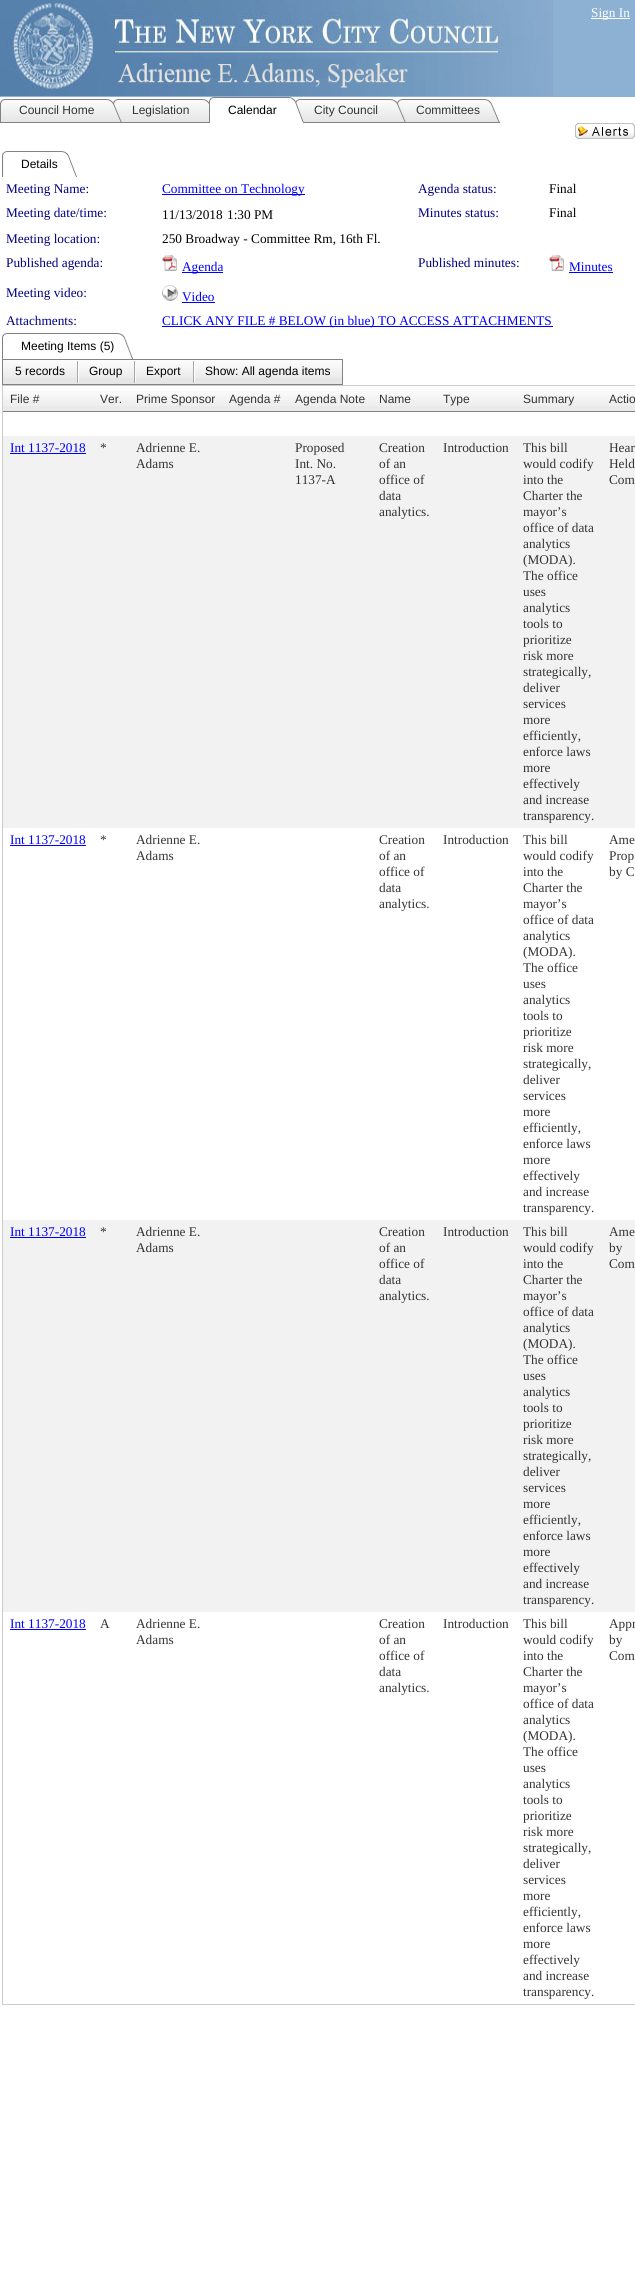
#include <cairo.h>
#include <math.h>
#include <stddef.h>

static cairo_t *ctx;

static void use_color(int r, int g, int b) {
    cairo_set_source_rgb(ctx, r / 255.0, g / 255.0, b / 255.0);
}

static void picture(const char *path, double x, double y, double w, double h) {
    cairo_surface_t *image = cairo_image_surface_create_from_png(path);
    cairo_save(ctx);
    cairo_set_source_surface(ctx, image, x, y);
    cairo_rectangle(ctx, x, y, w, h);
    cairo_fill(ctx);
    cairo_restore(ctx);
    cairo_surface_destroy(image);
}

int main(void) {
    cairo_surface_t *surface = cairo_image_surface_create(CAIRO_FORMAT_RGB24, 635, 2279);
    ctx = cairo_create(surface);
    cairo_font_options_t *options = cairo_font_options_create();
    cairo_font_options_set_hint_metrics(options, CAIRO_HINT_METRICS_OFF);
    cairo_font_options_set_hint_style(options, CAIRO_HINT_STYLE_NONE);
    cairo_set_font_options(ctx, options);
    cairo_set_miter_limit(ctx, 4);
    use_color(255, 255, 255);
    cairo_paint(ctx);
    use_color(140, 177, 210);
    cairo_rectangle(ctx, 0, 0, 635, 97);
    cairo_fill(ctx);
    picture("img1.png", 0, 0, 553, 96);
    use_color(255, 255, 255);
    cairo_rectangle(ctx, 591, 18, 39, 1);
    cairo_fill(ctx);
    cairo_select_font_face(ctx, "Liberation Serif", CAIRO_FONT_SLANT_NORMAL, CAIRO_FONT_WEIGHT_NORMAL);
    cairo_set_font_size(ctx, 13.3);
    cairo_move_to(ctx, 591, 17);
    cairo_show_text(ctx, "Sign In");
    picture("img2.png", 0, 99, 9, 24);
    picture("img3.png", 9, 99, 104, 24);
    cairo_select_font_face(ctx, "Liberation Sans", CAIRO_FONT_SLANT_NORMAL, CAIRO_FONT_WEIGHT_NORMAL);
    cairo_set_font_size(ctx, 12);
    use_color(51, 51, 51);
    cairo_move_to(ctx, 19, 114);
    cairo_show_text(ctx, "Council Home");
    picture("img4.png", 113, 99, 9, 24);
    picture("img5.png", 122, 99, 87, 24);
    cairo_move_to(ctx, 132, 114);
    cairo_show_text(ctx, "Legislation");
    picture("img6.png", 209, 97, 9, 26);
    picture("img7.png", 218, 97, 77, 5);
    use_color(0, 0, 0);
    cairo_move_to(ctx, 228, 114);
    cairo_show_text(ctx, "Calendar");
    picture("img8.png", 295, 99, 9, 24);
    picture("img9.png", 304, 99, 93, 24);
    use_color(51, 51, 51);
    cairo_move_to(ctx, 314, 114);
    cairo_show_text(ctx, "City Council");
    picture("img10.png", 397, 99, 9, 24);
    picture("img11.png", 406, 99, 94, 24);
    cairo_move_to(ctx, 416, 114);
    cairo_show_text(ctx, "Committees");
    picture("img12.png", 575, 123, 60, 16);
    picture("img13.png", 2, 151, 9, 26);
    picture("img14.png", 11, 151, 66, 26);
    use_color(0, 0, 0);
    cairo_move_to(ctx, 21, 168);
    cairo_show_text(ctx, "Details");
    cairo_select_font_face(ctx, "Liberation Serif", CAIRO_FONT_SLANT_NORMAL, CAIRO_FONT_WEIGHT_NORMAL);
    cairo_set_font_size(ctx, 13.3);
    use_color(0, 0, 128);
    cairo_move_to(ctx, 6, 193);
    cairo_show_text(ctx, "Meeting Name:");
    use_color(0, 0, 255);
    cairo_rectangle(ctx, 162, 194, 143, 1);
    cairo_fill(ctx);
    cairo_move_to(ctx, 162, 193);
    cairo_show_text(ctx, "Committee on Technology");
    use_color(0, 0, 128);
    cairo_move_to(ctx, 418, 193);
    cairo_show_text(ctx, "Agenda status:");
    use_color(0, 0, 0);
    cairo_move_to(ctx, 549, 193);
    cairo_show_text(ctx, "Final");
    use_color(0, 0, 128);
    cairo_move_to(ctx, 6, 217);
    cairo_show_text(ctx, "Meeting date/time:");
    use_color(0, 0, 0);
    cairo_move_to(ctx, 162, 219);
    cairo_show_text(ctx, "11/13/2018");
    cairo_move_to(ctx, 227, 219);
    cairo_show_text(ctx, "1:30 PM");
    use_color(0, 0, 128);
    cairo_move_to(ctx, 418, 217);
    cairo_show_text(ctx, "Minutes status:");
    use_color(0, 0, 0);
    cairo_move_to(ctx, 549, 217);
    cairo_show_text(ctx, "Final");
    use_color(0, 0, 128);
    cairo_move_to(ctx, 6, 243);
    cairo_show_text(ctx, "Meeting location:");
    use_color(0, 0, 0);
    cairo_move_to(ctx, 162, 243);
    cairo_show_text(ctx, "250 Broadway - Committee Rm, 16th Fl.");
    use_color(0, 0, 128);
    cairo_move_to(ctx, 6, 267);
    cairo_show_text(ctx, "Published agenda:");
    picture("img15.png", 162, 255, 15, 16);
    use_color(0, 0, 255);
    cairo_rectangle(ctx, 182, 272, 41, 1);
    cairo_fill(ctx);
    cairo_move_to(ctx, 182, 271);
    cairo_show_text(ctx, "Agenda");
    use_color(0, 0, 128);
    cairo_move_to(ctx, 418, 267);
    cairo_show_text(ctx, "Published minutes:");
    picture("img15.png", 549, 255, 15, 16);
    use_color(0, 0, 255);
    cairo_move_to(ctx, 569, 271);
    cairo_show_text(ctx, "Minutes");
    cairo_rectangle(ctx, 569, 272, 44, 1);
    cairo_fill(ctx);
    use_color(0, 0, 128);
    cairo_move_to(ctx, 6, 297);
    cairo_show_text(ctx, "Meeting video:");
    picture("img16.png", 162, 285, 16, 16);
    use_color(0, 0, 255);
    cairo_move_to(ctx, 182, 301);
    cairo_show_text(ctx, "Video");
    cairo_rectangle(ctx, 182, 302, 33, 1);
    cairo_fill(ctx);
    use_color(0, 0, 128);
    cairo_move_to(ctx, 6, 325);
    cairo_show_text(ctx, "Attachments:");
    use_color(0, 0, 255);
    cairo_rectangle(ctx, 162, 326, 391, 1);
    cairo_fill(ctx);
    cairo_move_to(ctx, 162, 325);
    cairo_show_text(ctx, "CLICK ANY FILE # BELOW (in blue) TO ACCESS ATTACHMENTS");
    picture("img17.png", 2, 333, 9, 26);
    picture("img18.png", 11, 333, 122, 26);
    cairo_select_font_face(ctx, "Liberation Sans", CAIRO_FONT_SLANT_NORMAL, CAIRO_FONT_WEIGHT_NORMAL);
    cairo_set_font_size(ctx, 12);
    use_color(0, 0, 0);
    cairo_move_to(ctx, 21, 350);
    cairo_show_text(ctx, "Meeting Items (5)");
    use_color(230, 230, 230);
    cairo_rectangle(ctx, 3, 378, 339, 6);
    cairo_fill(ctx);
    picture("img19.png", 3, 360, 339, 18);
    cairo_rectangle(ctx, 2.5, 359.5, 340, 25);
    use_color(130, 130, 130);
    cairo_set_line_width(ctx, 1);
    cairo_stroke(ctx);
    use_color(0, 0, 0);
    cairo_move_to(ctx, 15, 375);
    cairo_show_text(ctx, "5 records");
    picture("img20.png", 77, 361, 2, 22);
    cairo_move_to(ctx, 89, 375);
    cairo_show_text(ctx, "Group");
    picture("img21.png", 134, 361, 2, 22);
    cairo_move_to(ctx, 146, 375);
    cairo_show_text(ctx, "Export");
    picture("img20.png", 193, 361, 2, 22);
    cairo_move_to(ctx, 205, 375);
    cairo_show_text(ctx, "Show: All agenda items");
    cairo_rectangle(ctx, 2.5, 385.5, 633, 1619);
    use_color(204, 204, 204);
    cairo_stroke(ctx);
    use_color(234, 234, 234);
    cairo_rectangle(ctx, 3, 406, 632, 5);
    cairo_fill(ctx);
    picture("img22.png", 3, 386, 90, 20);
    use_color(130, 130, 130);
    cairo_rectangle(ctx, 3, 411, 632, 1);
    cairo_fill(ctx);
    use_color(51, 51, 51);
    cairo_move_to(ctx, 10, 403);
    cairo_show_text(ctx, "File #");
    picture("img23.png", 93, 386, 36, 20);
    cairo_move_to(ctx, 100, 403);
    cairo_show_text(ctx, "Ver.");
    picture("img24.png", 129, 386, 93, 20);
    cairo_move_to(ctx, 136, 403);
    cairo_show_text(ctx, "Prime Sponsor");
    picture("img25.png", 222, 386, 66, 20);
    cairo_move_to(ctx, 229, 403);
    cairo_show_text(ctx, "Agenda #");
    picture("img26.png", 288, 386, 84, 20);
    cairo_move_to(ctx, 295, 403);
    cairo_show_text(ctx, "Agenda Note");
    picture("img27.png", 372, 386, 64, 20);
    cairo_move_to(ctx, 379, 403);
    cairo_show_text(ctx, "Name");
    picture("img28.png", 436, 386, 80, 20);
    cairo_move_to(ctx, 443, 403);
    cairo_show_text(ctx, "Type");
    picture("img29.png", 516, 386, 86, 20);
    cairo_move_to(ctx, 523, 403);
    cairo_show_text(ctx, "Summary");
    picture("img30.png", 602, 386, 33, 20);
    cairo_move_to(ctx, 609, 403);
    cairo_show_text(ctx, "Actio");
    use_color(242, 242, 242);
    cairo_rectangle(ctx, 3, 436, 632, 392);
    cairo_fill(ctx);
    cairo_select_font_face(ctx, "Liberation Serif", CAIRO_FONT_SLANT_NORMAL, CAIRO_FONT_WEIGHT_NORMAL);
    cairo_set_font_size(ctx, 13.3);
    use_color(0, 0, 255);
    cairo_move_to(ctx, 10, 452);
    cairo_show_text(ctx, "Int 1137-2018");
    cairo_rectangle(ctx, 10, 453, 76, 1);
    cairo_fill(ctx);
    use_color(51, 51, 51);
    cairo_move_to(ctx, 100, 452);
    cairo_show_text(ctx, "*");
    cairo_move_to(ctx, 136, 452);
    cairo_show_text(ctx, "Adrienne E.");
    cairo_move_to(ctx, 136, 468);
    cairo_show_text(ctx, "Adams");
    cairo_move_to(ctx, 295, 452);
    cairo_show_text(ctx, "Proposed");
    cairo_move_to(ctx, 295, 468);
    cairo_show_text(ctx, "Int. No.");
    cairo_move_to(ctx, 295, 484);
    cairo_show_text(ctx, "1137-A");
    cairo_move_to(ctx, 379, 452);
    cairo_show_text(ctx, "Creation");
    cairo_move_to(ctx, 379, 468);
    cairo_show_text(ctx, "of an");
    cairo_move_to(ctx, 379, 484);
    cairo_show_text(ctx, "office of");
    cairo_move_to(ctx, 379, 500);
    cairo_show_text(ctx, "data");
    cairo_move_to(ctx, 379, 516);
    cairo_show_text(ctx, "analytics.");
    cairo_move_to(ctx, 443, 452);
    cairo_show_text(ctx, "Introduction");
    cairo_move_to(ctx, 523, 452);
    cairo_show_text(ctx, "This bill");
    cairo_move_to(ctx, 523, 468);
    cairo_show_text(ctx, "would codify");
    cairo_move_to(ctx, 523, 484);
    cairo_show_text(ctx, "into the");
    cairo_move_to(ctx, 523, 500);
    cairo_show_text(ctx, "Charter the");
    cairo_move_to(ctx, 523, 516);
    cairo_show_text(ctx, "mayor’s");
    cairo_move_to(ctx, 523, 532);
    cairo_show_text(ctx, "office of data");
    cairo_move_to(ctx, 523, 548);
    cairo_show_text(ctx, "analytics");
    cairo_move_to(ctx, 523, 564);
    cairo_show_text(ctx, "(MODA).");
    cairo_move_to(ctx, 523, 580);
    cairo_show_text(ctx, "The office");
    cairo_move_to(ctx, 523, 596);
    cairo_show_text(ctx, "uses");
    cairo_move_to(ctx, 523, 612);
    cairo_show_text(ctx, "analytics");
    cairo_move_to(ctx, 523, 628);
    cairo_show_text(ctx, "tools to");
    cairo_move_to(ctx, 523, 644);
    cairo_show_text(ctx, "prioritize");
    cairo_move_to(ctx, 523, 660);
    cairo_show_text(ctx, "risk more");
    cairo_move_to(ctx, 523, 676);
    cairo_show_text(ctx, "strategically,");
    cairo_move_to(ctx, 523, 692);
    cairo_show_text(ctx, "deliver");
    cairo_move_to(ctx, 523, 708);
    cairo_show_text(ctx, "services");
    cairo_move_to(ctx, 523, 724);
    cairo_show_text(ctx, "more");
    cairo_move_to(ctx, 523, 740);
    cairo_show_text(ctx, "efficiently,");
    cairo_move_to(ctx, 523, 756);
    cairo_show_text(ctx, "enforce laws");
    cairo_move_to(ctx, 523, 772);
    cairo_show_text(ctx, "more");
    cairo_move_to(ctx, 523, 788);
    cairo_show_text(ctx, "effectively");
    cairo_move_to(ctx, 523, 804);
    cairo_show_text(ctx, "and increase");
    cairo_move_to(ctx, 523, 820);
    cairo_show_text(ctx, "transparency.");
    cairo_move_to(ctx, 609, 452);
    cairo_show_text(ctx, "Hear");
    cairo_move_to(ctx, 609, 468);
    cairo_show_text(ctx, "Held");
    cairo_move_to(ctx, 609, 484);
    cairo_show_text(ctx, "Com");
    use_color(0, 0, 255);
    cairo_move_to(ctx, 10, 844);
    cairo_show_text(ctx, "Int 1137-2018");
    cairo_rectangle(ctx, 10, 845, 76, 1);
    cairo_fill(ctx);
    use_color(51, 51, 51);
    cairo_move_to(ctx, 100, 844);
    cairo_show_text(ctx, "*");
    cairo_move_to(ctx, 136, 844);
    cairo_show_text(ctx, "Adrienne E.");
    cairo_move_to(ctx, 136, 860);
    cairo_show_text(ctx, "Adams");
    cairo_move_to(ctx, 379, 844);
    cairo_show_text(ctx, "Creation");
    cairo_move_to(ctx, 379, 860);
    cairo_show_text(ctx, "of an");
    cairo_move_to(ctx, 379, 876);
    cairo_show_text(ctx, "office of");
    cairo_move_to(ctx, 379, 892);
    cairo_show_text(ctx, "data");
    cairo_move_to(ctx, 379, 908);
    cairo_show_text(ctx, "analytics.");
    cairo_move_to(ctx, 443, 844);
    cairo_show_text(ctx, "Introduction");
    cairo_move_to(ctx, 523, 844);
    cairo_show_text(ctx, "This bill");
    cairo_move_to(ctx, 523, 860);
    cairo_show_text(ctx, "would codify");
    cairo_move_to(ctx, 523, 876);
    cairo_show_text(ctx, "into the");
    cairo_move_to(ctx, 523, 892);
    cairo_show_text(ctx, "Charter the");
    cairo_move_to(ctx, 523, 908);
    cairo_show_text(ctx, "mayor’s");
    cairo_move_to(ctx, 523, 924);
    cairo_show_text(ctx, "office of data");
    cairo_move_to(ctx, 523, 940);
    cairo_show_text(ctx, "analytics");
    cairo_move_to(ctx, 523, 956);
    cairo_show_text(ctx, "(MODA).");
    cairo_move_to(ctx, 523, 972);
    cairo_show_text(ctx, "The office");
    cairo_move_to(ctx, 523, 988);
    cairo_show_text(ctx, "uses");
    cairo_move_to(ctx, 523, 1004);
    cairo_show_text(ctx, "analytics");
    cairo_move_to(ctx, 523, 1020);
    cairo_show_text(ctx, "tools to");
    cairo_move_to(ctx, 523, 1036);
    cairo_show_text(ctx, "prioritize");
    cairo_move_to(ctx, 523, 1052);
    cairo_show_text(ctx, "risk more");
    cairo_move_to(ctx, 523, 1068);
    cairo_show_text(ctx, "strategically,");
    cairo_move_to(ctx, 523, 1084);
    cairo_show_text(ctx, "deliver");
    cairo_move_to(ctx, 523, 1100);
    cairo_show_text(ctx, "services");
    cairo_move_to(ctx, 523, 1116);
    cairo_show_text(ctx, "more");
    cairo_move_to(ctx, 523, 1132);
    cairo_show_text(ctx, "efficiently,");
    cairo_move_to(ctx, 523, 1148);
    cairo_show_text(ctx, "enforce laws");
    cairo_move_to(ctx, 523, 1164);
    cairo_show_text(ctx, "more");
    cairo_move_to(ctx, 523, 1180);
    cairo_show_text(ctx, "effectively");
    cairo_move_to(ctx, 523, 1196);
    cairo_show_text(ctx, "and increase");
    cairo_move_to(ctx, 523, 1212);
    cairo_show_text(ctx, "transparency.");
    cairo_move_to(ctx, 609, 844);
    cairo_show_text(ctx, "Ame");
    cairo_move_to(ctx, 609, 860);
    cairo_show_text(ctx, "Prop");
    cairo_move_to(ctx, 609, 876);
    cairo_show_text(ctx, "by C");
    use_color(242, 242, 242);
    cairo_rectangle(ctx, 3, 1220, 632, 392);
    cairo_fill(ctx);
    use_color(0, 0, 255);
    cairo_move_to(ctx, 10, 1236);
    cairo_show_text(ctx, "Int 1137-2018");
    cairo_rectangle(ctx, 10, 1237, 76, 1);
    cairo_fill(ctx);
    use_color(51, 51, 51);
    cairo_move_to(ctx, 100, 1236);
    cairo_show_text(ctx, "*");
    cairo_move_to(ctx, 136, 1236);
    cairo_show_text(ctx, "Adrienne E.");
    cairo_move_to(ctx, 136, 1252);
    cairo_show_text(ctx, "Adams");
    cairo_move_to(ctx, 379, 1236);
    cairo_show_text(ctx, "Creation");
    cairo_move_to(ctx, 379, 1252);
    cairo_show_text(ctx, "of an");
    cairo_move_to(ctx, 379, 1268);
    cairo_show_text(ctx, "office of");
    cairo_move_to(ctx, 379, 1284);
    cairo_show_text(ctx, "data");
    cairo_move_to(ctx, 379, 1300);
    cairo_show_text(ctx, "analytics.");
    cairo_move_to(ctx, 443, 1236);
    cairo_show_text(ctx, "Introduction");
    cairo_move_to(ctx, 523, 1236);
    cairo_show_text(ctx, "This bill");
    cairo_move_to(ctx, 523, 1252);
    cairo_show_text(ctx, "would codify");
    cairo_move_to(ctx, 523, 1268);
    cairo_show_text(ctx, "into the");
    cairo_move_to(ctx, 523, 1284);
    cairo_show_text(ctx, "Charter the");
    cairo_move_to(ctx, 523, 1300);
    cairo_show_text(ctx, "mayor’s");
    cairo_move_to(ctx, 523, 1316);
    cairo_show_text(ctx, "office of data");
    cairo_move_to(ctx, 523, 1332);
    cairo_show_text(ctx, "analytics");
    cairo_move_to(ctx, 523, 1348);
    cairo_show_text(ctx, "(MODA).");
    cairo_move_to(ctx, 523, 1364);
    cairo_show_text(ctx, "The office");
    cairo_move_to(ctx, 523, 1380);
    cairo_show_text(ctx, "uses");
    cairo_move_to(ctx, 523, 1396);
    cairo_show_text(ctx, "analytics");
    cairo_move_to(ctx, 523, 1412);
    cairo_show_text(ctx, "tools to");
    cairo_move_to(ctx, 523, 1428);
    cairo_show_text(ctx, "prioritize");
    cairo_move_to(ctx, 523, 1444);
    cairo_show_text(ctx, "risk more");
    cairo_move_to(ctx, 523, 1460);
    cairo_show_text(ctx, "strategically,");
    cairo_move_to(ctx, 523, 1476);
    cairo_show_text(ctx, "deliver");
    cairo_move_to(ctx, 523, 1492);
    cairo_show_text(ctx, "services");
    cairo_move_to(ctx, 523, 1508);
    cairo_show_text(ctx, "more");
    cairo_move_to(ctx, 523, 1524);
    cairo_show_text(ctx, "efficiently,");
    cairo_move_to(ctx, 523, 1540);
    cairo_show_text(ctx, "enforce laws");
    cairo_move_to(ctx, 523, 1556);
    cairo_show_text(ctx, "more");
    cairo_move_to(ctx, 523, 1572);
    cairo_show_text(ctx, "effectively");
    cairo_move_to(ctx, 523, 1588);
    cairo_show_text(ctx, "and increase");
    cairo_move_to(ctx, 523, 1604);
    cairo_show_text(ctx, "transparency.");
    cairo_move_to(ctx, 609, 1236);
    cairo_show_text(ctx, "Ame");
    cairo_move_to(ctx, 609, 1252);
    cairo_show_text(ctx, "by");
    cairo_move_to(ctx, 609, 1268);
    cairo_show_text(ctx, "Com");
    use_color(0, 0, 255);
    cairo_move_to(ctx, 10, 1628);
    cairo_show_text(ctx, "Int 1137-2018");
    cairo_rectangle(ctx, 10, 1629, 76, 1);
    cairo_fill(ctx);
    use_color(51, 51, 51);
    cairo_move_to(ctx, 100, 1628);
    cairo_show_text(ctx, "A");
    cairo_move_to(ctx, 136, 1628);
    cairo_show_text(ctx, "Adrienne E.");
    cairo_move_to(ctx, 136, 1644);
    cairo_show_text(ctx, "Adams");
    cairo_move_to(ctx, 379, 1628);
    cairo_show_text(ctx, "Creation");
    cairo_move_to(ctx, 379, 1644);
    cairo_show_text(ctx, "of an");
    cairo_move_to(ctx, 379, 1660);
    cairo_show_text(ctx, "office of");
    cairo_move_to(ctx, 379, 1676);
    cairo_show_text(ctx, "data");
    cairo_move_to(ctx, 379, 1692);
    cairo_show_text(ctx, "analytics.");
    cairo_move_to(ctx, 443, 1628);
    cairo_show_text(ctx, "Introduction");
    cairo_move_to(ctx, 523, 1628);
    cairo_show_text(ctx, "This bill");
    cairo_move_to(ctx, 523, 1644);
    cairo_show_text(ctx, "would codify");
    cairo_move_to(ctx, 523, 1660);
    cairo_show_text(ctx, "into the");
    cairo_move_to(ctx, 523, 1676);
    cairo_show_text(ctx, "Charter the");
    cairo_move_to(ctx, 523, 1692);
    cairo_show_text(ctx, "mayor’s");
    cairo_move_to(ctx, 523, 1708);
    cairo_show_text(ctx, "office of data");
    cairo_move_to(ctx, 523, 1724);
    cairo_show_text(ctx, "analytics");
    cairo_move_to(ctx, 523, 1740);
    cairo_show_text(ctx, "(MODA).");
    cairo_move_to(ctx, 523, 1756);
    cairo_show_text(ctx, "The office");
    cairo_move_to(ctx, 523, 1772);
    cairo_show_text(ctx, "uses");
    cairo_move_to(ctx, 523, 1788);
    cairo_show_text(ctx, "analytics");
    cairo_move_to(ctx, 523, 1804);
    cairo_show_text(ctx, "tools to");
    cairo_move_to(ctx, 523, 1820);
    cairo_show_text(ctx, "prioritize");
    cairo_move_to(ctx, 523, 1836);
    cairo_show_text(ctx, "risk more");
    cairo_move_to(ctx, 523, 1852);
    cairo_show_text(ctx, "strategically,");
    cairo_move_to(ctx, 523, 1868);
    cairo_show_text(ctx, "deliver");
    cairo_move_to(ctx, 523, 1884);
    cairo_show_text(ctx, "services");
    cairo_move_to(ctx, 523, 1900);
    cairo_show_text(ctx, "more");
    cairo_move_to(ctx, 523, 1916);
    cairo_show_text(ctx, "efficiently,");
    cairo_move_to(ctx, 523, 1932);
    cairo_show_text(ctx, "enforce laws");
    cairo_move_to(ctx, 523, 1948);
    cairo_show_text(ctx, "more");
    cairo_move_to(ctx, 523, 1964);
    cairo_show_text(ctx, "effectively");
    cairo_move_to(ctx, 523, 1980);
    cairo_show_text(ctx, "and increase");
    cairo_move_to(ctx, 523, 1996);
    cairo_show_text(ctx, "transparency.");
    cairo_move_to(ctx, 609, 1628);
    cairo_show_text(ctx, "Appr");
    cairo_move_to(ctx, 609, 1644);
    cairo_show_text(ctx, "by");
    cairo_move_to(ctx, 609, 1660);
    cairo_show_text(ctx, "Com");
    cairo_surface_write_to_png(surface, "result.png");
    cairo_font_options_destroy(options);
    cairo_destroy(ctx);
    cairo_surface_destroy(surface);
    return 0;
}
